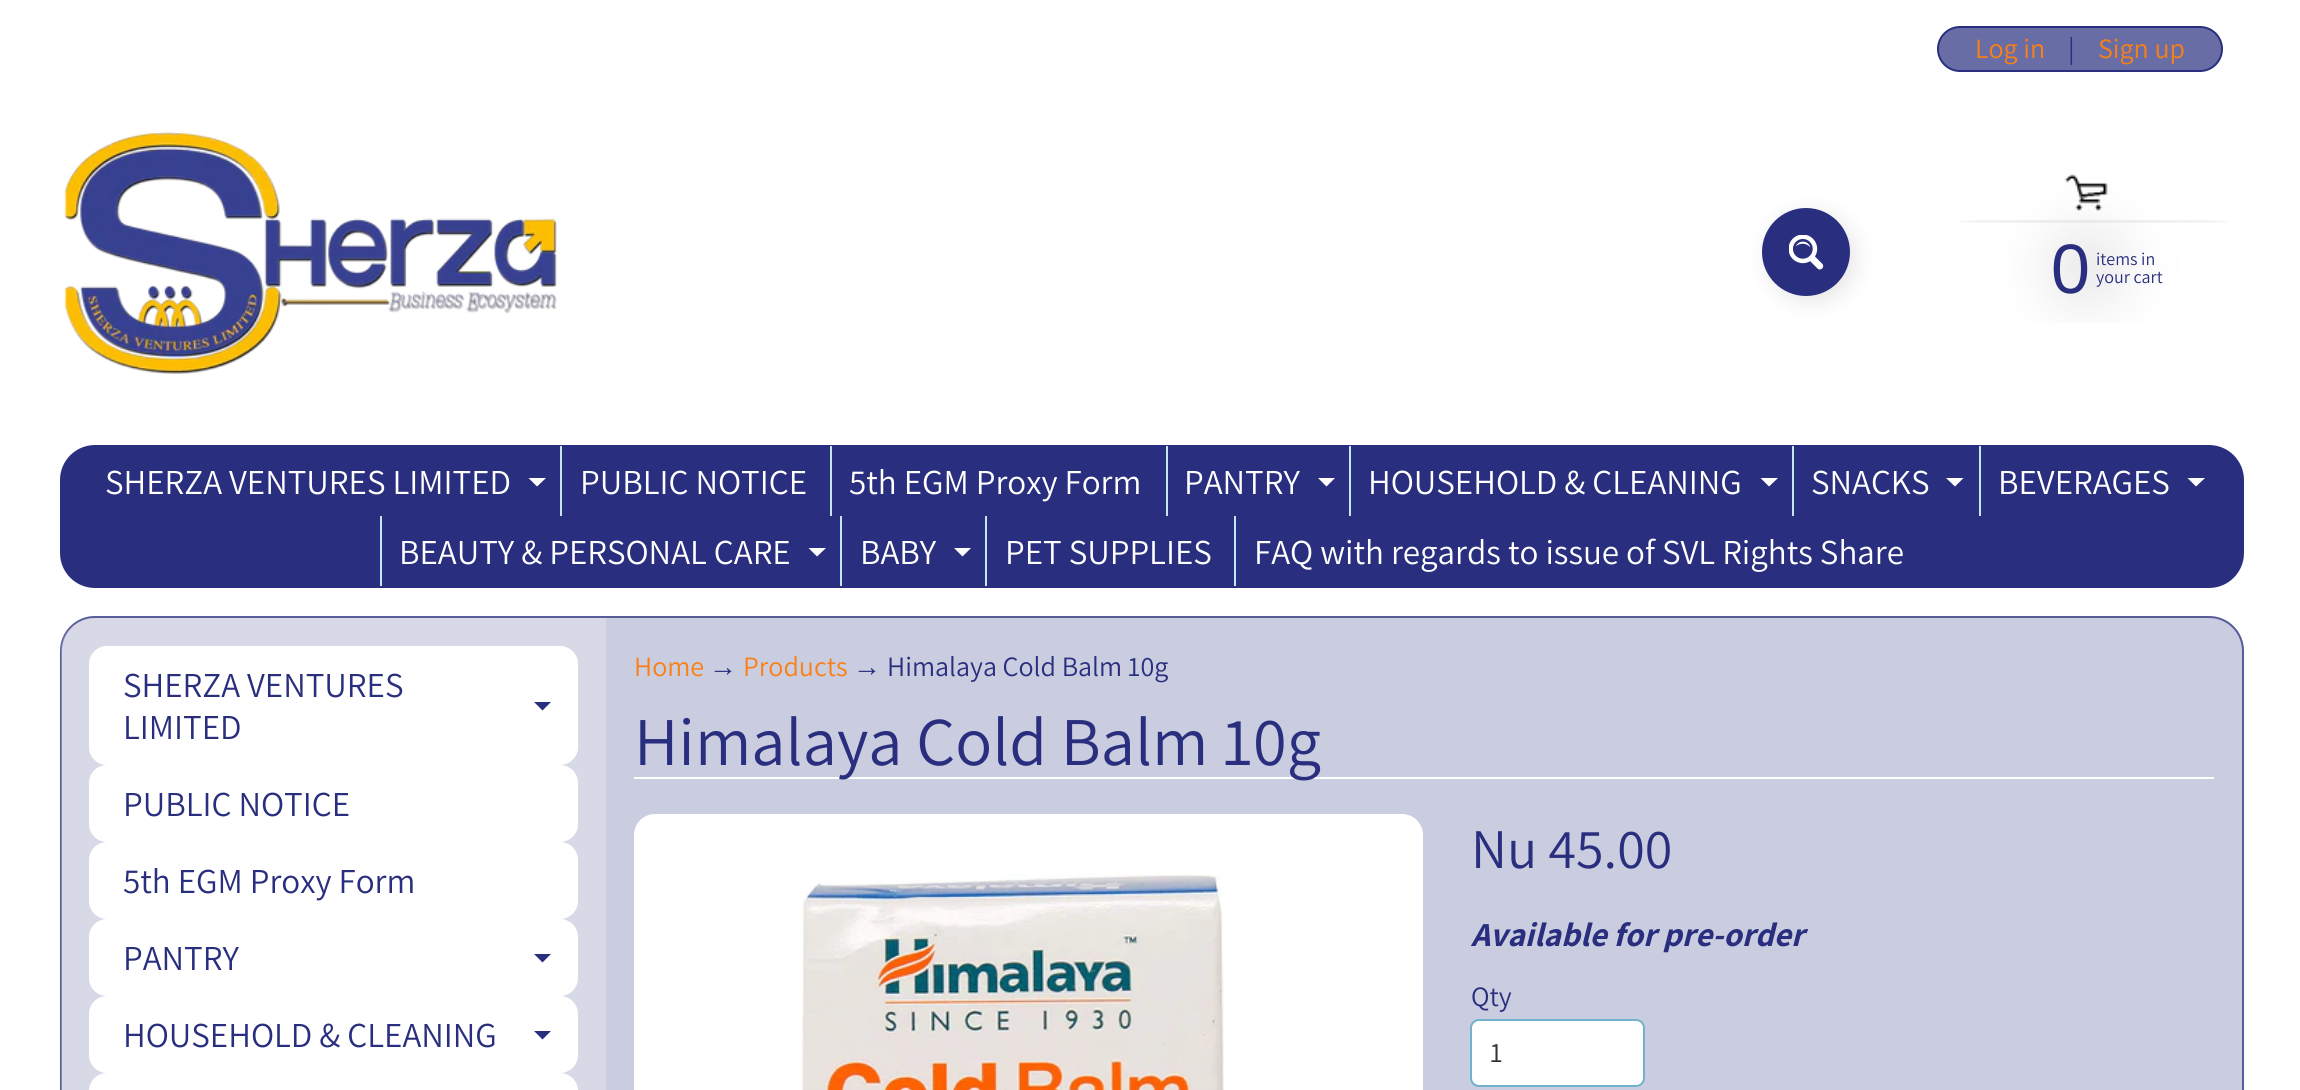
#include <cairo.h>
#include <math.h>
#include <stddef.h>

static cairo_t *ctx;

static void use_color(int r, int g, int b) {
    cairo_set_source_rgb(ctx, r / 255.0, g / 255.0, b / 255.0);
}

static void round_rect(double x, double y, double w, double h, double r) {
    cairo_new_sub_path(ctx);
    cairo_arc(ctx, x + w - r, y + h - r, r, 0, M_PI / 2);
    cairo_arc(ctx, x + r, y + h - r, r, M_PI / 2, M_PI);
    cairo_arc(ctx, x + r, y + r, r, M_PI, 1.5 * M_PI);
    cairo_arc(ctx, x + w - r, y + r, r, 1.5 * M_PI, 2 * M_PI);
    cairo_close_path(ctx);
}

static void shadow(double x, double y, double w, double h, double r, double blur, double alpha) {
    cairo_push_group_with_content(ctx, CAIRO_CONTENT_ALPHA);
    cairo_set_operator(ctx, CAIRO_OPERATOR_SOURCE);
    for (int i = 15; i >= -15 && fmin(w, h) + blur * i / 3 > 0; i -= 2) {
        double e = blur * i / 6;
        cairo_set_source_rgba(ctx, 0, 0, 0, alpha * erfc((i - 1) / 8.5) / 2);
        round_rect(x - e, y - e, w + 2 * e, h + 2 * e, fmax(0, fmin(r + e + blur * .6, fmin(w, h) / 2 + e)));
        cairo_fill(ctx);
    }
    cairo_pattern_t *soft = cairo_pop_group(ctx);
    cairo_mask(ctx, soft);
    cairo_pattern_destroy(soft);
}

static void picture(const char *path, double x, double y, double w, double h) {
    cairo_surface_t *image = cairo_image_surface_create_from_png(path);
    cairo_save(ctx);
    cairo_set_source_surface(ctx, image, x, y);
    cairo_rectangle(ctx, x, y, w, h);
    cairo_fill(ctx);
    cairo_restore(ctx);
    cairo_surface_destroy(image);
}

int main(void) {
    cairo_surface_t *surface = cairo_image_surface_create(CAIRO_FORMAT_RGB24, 2300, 1090);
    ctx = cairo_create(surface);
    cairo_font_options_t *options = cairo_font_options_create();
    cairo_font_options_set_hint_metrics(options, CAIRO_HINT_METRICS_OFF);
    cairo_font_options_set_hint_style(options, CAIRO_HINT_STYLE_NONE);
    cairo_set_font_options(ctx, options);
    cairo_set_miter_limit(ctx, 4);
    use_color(255, 255, 255);
    cairo_paint(ctx);
    picture("img1.png", 64, 131, 493, 243);
    use_color(105, 109, 165);
    round_rect(1938, 27, 284, 44, 22);
    cairo_fill_preserve(ctx);
    use_color(41, 47, 126);
    cairo_stroke(ctx);
    cairo_select_font_face(ctx, "Assistant", CAIRO_FONT_SLANT_NORMAL, CAIRO_FONT_WEIGHT_NORMAL);
    cairo_set_font_size(ctx, 28);
    use_color(250, 128, 22);
    cairo_move_to(ctx, 1975, 58);
    cairo_show_text(ctx, "Log in");
    use_color(41, 47, 126);
    cairo_move_to(ctx, 2068, 58);
    cairo_show_text(ctx, "|");
    use_color(250, 128, 22);
    cairo_move_to(ctx, 2098, 58);
    cairo_show_text(ctx, "Sign up");
    use_color(0, 0, 0);
    shadow(1768, 214, 87, 87, 43.5, 10.5, 0.1);
    use_color(41, 47, 126);
    cairo_arc(ctx, 1806, 252, 44, 0, 2 * M_PI);
    cairo_fill(ctx);
    picture("img2.png", 1789, 235, 35, 35);
    picture("img3.png", 1960, 174, 268, 149);
    cairo_select_font_face(ctx, "Liberation Sans", CAIRO_FONT_SLANT_NORMAL, CAIRO_FONT_WEIGHT_NORMAL);
    cairo_set_font_size(ctx, 70);
    cairo_move_to(ctx, 2051, 293);
    cairo_show_text(ctx, "0");
    cairo_select_font_face(ctx, "Assistant", CAIRO_FONT_SLANT_NORMAL, CAIRO_FONT_WEIGHT_NORMAL);
    cairo_set_font_size(ctx, 18);
    cairo_move_to(ctx, 2096, 265);
    cairo_show_text(ctx, "items in");
    cairo_move_to(ctx, 2096, 283);
    cairo_show_text(ctx, "your cart");
    round_rect(61, 446, 2182, 141, 34);
    cairo_fill_preserve(ctx);
    cairo_stroke(ctx);
    cairo_set_font_size(ctx, 35);
    use_color(255, 255, 255);
    cairo_move_to(ctx, 105, 494);
    cairo_show_text(ctx, "SHERZA VENTURES LIMITED");
    cairo_new_path(ctx);
    cairo_move_to(ctx, 528.5, 478);
    cairo_line_to(ctx, 546, 478);
    cairo_line_to(ctx, 537, 486.5);
    cairo_close_path(ctx);
    cairo_fill(ctx);
    use_color(195, 231, 234);
    cairo_rectangle(ctx, 560, 446, 2, 70);
    cairo_fill(ctx);
    use_color(255, 255, 255);
    cairo_move_to(ctx, 580, 494);
    cairo_show_text(ctx, "PUBLIC NOTICE");
    use_color(195, 231, 234);
    cairo_rectangle(ctx, 830, 446, 2, 70);
    cairo_fill(ctx);
    use_color(255, 255, 255);
    cairo_move_to(ctx, 849, 494);
    cairo_show_text(ctx, "5th EGM Proxy Form");
    use_color(195, 231, 234);
    cairo_rectangle(ctx, 1166, 446, 2, 70);
    cairo_fill(ctx);
    use_color(255, 255, 255);
    cairo_move_to(ctx, 1184, 494);
    cairo_show_text(ctx, "PANTRY");
    cairo_new_path(ctx);
    cairo_move_to(ctx, 1318, 478);
    cairo_line_to(ctx, 1335, 478);
    cairo_line_to(ctx, 1326.5, 486.5);
    cairo_close_path(ctx);
    cairo_fill(ctx);
    use_color(195, 231, 234);
    cairo_rectangle(ctx, 1349, 446, 2, 70);
    cairo_fill(ctx);
    use_color(255, 255, 255);
    cairo_move_to(ctx, 1368, 494);
    cairo_show_text(ctx, "HOUSEHOLD & CLEANING");
    cairo_new_path(ctx);
    cairo_move_to(ctx, 1760.5, 478);
    cairo_line_to(ctx, 1778, 478);
    cairo_line_to(ctx, 1769, 486.5);
    cairo_close_path(ctx);
    cairo_fill(ctx);
    use_color(195, 231, 234);
    cairo_rectangle(ctx, 1792, 446, 2, 70);
    cairo_fill(ctx);
    use_color(255, 255, 255);
    cairo_move_to(ctx, 1811, 494);
    cairo_show_text(ctx, "SNACKS");
    cairo_new_path(ctx);
    cairo_move_to(ctx, 1946, 478);
    cairo_line_to(ctx, 1963.5, 478);
    cairo_line_to(ctx, 1955, 486.5);
    cairo_close_path(ctx);
    cairo_fill(ctx);
    use_color(195, 231, 234);
    cairo_rectangle(ctx, 1979, 446, 2, 70);
    cairo_fill(ctx);
    use_color(255, 255, 255);
    cairo_move_to(ctx, 1998, 494);
    cairo_show_text(ctx, "BEVERAGES");
    cairo_new_path(ctx);
    cairo_move_to(ctx, 2187.5, 478);
    cairo_line_to(ctx, 2205, 478);
    cairo_line_to(ctx, 2196, 486.5);
    cairo_close_path(ctx);
    cairo_fill(ctx);
    use_color(195, 231, 234);
    cairo_rectangle(ctx, 380, 516, 2, 70);
    cairo_fill(ctx);
    use_color(255, 255, 255);
    cairo_move_to(ctx, 399, 564);
    cairo_show_text(ctx, "BEAUTY & PERSONAL CARE");
    cairo_new_path(ctx);
    cairo_move_to(ctx, 808.5, 548);
    cairo_line_to(ctx, 826, 548);
    cairo_line_to(ctx, 817, 556.5);
    cairo_close_path(ctx);
    cairo_fill(ctx);
    use_color(195, 231, 234);
    cairo_rectangle(ctx, 840, 516, 2, 70);
    cairo_fill(ctx);
    use_color(255, 255, 255);
    cairo_move_to(ctx, 860, 564);
    cairo_show_text(ctx, "BABY");
    cairo_new_path(ctx);
    cairo_move_to(ctx, 954, 548);
    cairo_line_to(ctx, 971, 548);
    cairo_line_to(ctx, 962.5, 556.5);
    cairo_close_path(ctx);
    cairo_fill(ctx);
    use_color(195, 231, 234);
    cairo_rectangle(ctx, 985, 516, 2, 70);
    cairo_fill(ctx);
    use_color(255, 255, 255);
    cairo_move_to(ctx, 1005, 564);
    cairo_show_text(ctx, "PET SUPPLIES");
    use_color(195, 231, 234);
    cairo_rectangle(ctx, 1234, 516, 2, 70);
    cairo_fill(ctx);
    use_color(255, 255, 255);
    cairo_move_to(ctx, 1254, 564);
    cairo_show_text(ctx, "FAQ with regards to issue of SVL Rights Share");
    use_color(202, 204, 223);
    round_rect(60, 616, 2184, 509, 35);
    cairo_fill(ctx);
    round_rect(61, 617, 2182, 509, 34);
    cairo_set_source_rgba(ctx, 0.161, 0.184, 0.494, 0.7);
    cairo_stroke(ctx);
    cairo_set_source_rgba(ctx, 1, 1, 1, 0.25);
    cairo_new_path(ctx);
    cairo_move_to(ctx, 94, 618);
    cairo_line_to(ctx, 606, 618);
    cairo_line_to(ctx, 606, 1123);
    cairo_line_to(ctx, 94, 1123);
    cairo_curve_to(ctx, 76, 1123, 61, 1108, 61, 1090);
    cairo_line_to(ctx, 61, 651);
    cairo_curve_to(ctx, 61, 633, 76, 618, 94, 618);
    cairo_close_path(ctx);
    cairo_fill(ctx);
    use_color(255, 255, 255);
    round_rect(89, 646, 489, 119, 18);
    cairo_fill(ctx);
    use_color(41, 47, 126);
    cairo_move_to(ctx, 123, 697);
    cairo_show_text(ctx, "SHERZA VENTURES");
    cairo_new_path(ctx);
    cairo_move_to(ctx, 534, 702);
    cairo_line_to(ctx, 551, 702);
    cairo_line_to(ctx, 542.5, 710.5);
    cairo_close_path(ctx);
    cairo_fill(ctx);
    cairo_move_to(ctx, 123, 739);
    cairo_show_text(ctx, "LIMITED");
    use_color(255, 255, 255);
    round_rect(89, 765, 489, 77, 18);
    cairo_fill(ctx);
    use_color(41, 47, 126);
    cairo_move_to(ctx, 123, 816);
    cairo_show_text(ctx, "PUBLIC NOTICE");
    use_color(255, 255, 255);
    round_rect(89, 842, 489, 77, 18);
    cairo_fill(ctx);
    use_color(41, 47, 126);
    cairo_move_to(ctx, 123, 893);
    cairo_show_text(ctx, "5th EGM Proxy Form");
    use_color(255, 255, 255);
    round_rect(89, 919, 489, 77, 18);
    cairo_fill(ctx);
    use_color(41, 47, 126);
    cairo_move_to(ctx, 123, 970);
    cairo_show_text(ctx, "PANTRY");
    cairo_new_path(ctx);
    cairo_move_to(ctx, 534, 954);
    cairo_line_to(ctx, 551, 954);
    cairo_line_to(ctx, 542.5, 962.5);
    cairo_close_path(ctx);
    cairo_fill(ctx);
    use_color(255, 255, 255);
    round_rect(89, 996, 489, 77, 18);
    cairo_fill(ctx);
    use_color(41, 47, 126);
    cairo_move_to(ctx, 123, 1047);
    cairo_show_text(ctx, "HOUSEHOLD & CLEANING");
    cairo_new_path(ctx);
    cairo_move_to(ctx, 534, 1031);
    cairo_line_to(ctx, 551, 1031);
    cairo_line_to(ctx, 542.5, 1039.5);
    cairo_close_path(ctx);
    cairo_fill(ctx);
    use_color(255, 255, 255);
    round_rect(89, 1073, 489, 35, 18);
    cairo_fill(ctx);
    cairo_set_font_size(ctx, 28);
    use_color(250, 128, 22);
    cairo_move_to(ctx, 634, 676);
    cairo_show_text(ctx, "Home");
    cairo_select_font_face(ctx, "Liberation Sans", CAIRO_FONT_SLANT_NORMAL, CAIRO_FONT_WEIGHT_NORMAL);
    use_color(41, 47, 126);
    cairo_move_to(ctx, 709, 676);
    cairo_show_text(ctx, "→");
    cairo_select_font_face(ctx, "Assistant", CAIRO_FONT_SLANT_NORMAL, CAIRO_FONT_WEIGHT_NORMAL);
    use_color(250, 128, 22);
    cairo_move_to(ctx, 743, 676);
    cairo_show_text(ctx, "Products");
    cairo_select_font_face(ctx, "Liberation Sans", CAIRO_FONT_SLANT_NORMAL, CAIRO_FONT_WEIGHT_NORMAL);
    use_color(41, 47, 126);
    cairo_move_to(ctx, 853, 676);
    cairo_show_text(ctx, "→");
    cairo_select_font_face(ctx, "Assistant", CAIRO_FONT_SLANT_NORMAL, CAIRO_FONT_WEIGHT_NORMAL);
    cairo_move_to(ctx, 887, 676);
    cairo_show_text(ctx, "Himalaya Cold Balm 10g");
    use_color(255, 255, 255);
    cairo_rectangle(ctx, 634, 777, 1580, 2);
    cairo_fill(ctx);
    cairo_set_font_size(ctx, 68.4);
    use_color(41, 47, 126);
    cairo_move_to(ctx, 634, 765);
    cairo_show_text(ctx, "Himalaya Cold Balm 10g");
    use_color(255, 255, 255);
    round_rect(634, 814, 789, 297, 21);
    cairo_fill(ctx);
    picture("img4.png", 801, 874, 423, 216);
    cairo_set_font_size(ctx, 56);
    use_color(41, 47, 126);
    cairo_move_to(ctx, 1471, 868);
    cairo_show_text(ctx, "Nu 45.00");
    cairo_select_font_face(ctx, "Assistant", CAIRO_FONT_SLANT_ITALIC, CAIRO_FONT_WEIGHT_BOLD);
    cairo_set_font_size(ctx, 33.5);
    cairo_move_to(ctx, 1471, 946);
    cairo_show_text(ctx, "Available for pre-order");
    cairo_select_font_face(ctx, "Assistant", CAIRO_FONT_SLANT_NORMAL, CAIRO_FONT_WEIGHT_NORMAL);
    cairo_set_font_size(ctx, 28);
    cairo_move_to(ctx, 1471, 1006);
    cairo_show_text(ctx, "Qty");
    use_color(255, 255, 255);
    round_rect(1471, 1020, 173, 66, 8);
    cairo_fill_preserve(ctx);
    use_color(112, 177, 204);
    cairo_stroke(ctx);
    use_color(51, 51, 51);
    cairo_move_to(ctx, 1490, 1062);
    cairo_show_text(ctx, "1");
    cairo_surface_write_to_png(surface, "result.png");
    cairo_font_options_destroy(options);
    cairo_destroy(ctx);
    cairo_surface_destroy(surface);
    return 0;
}
